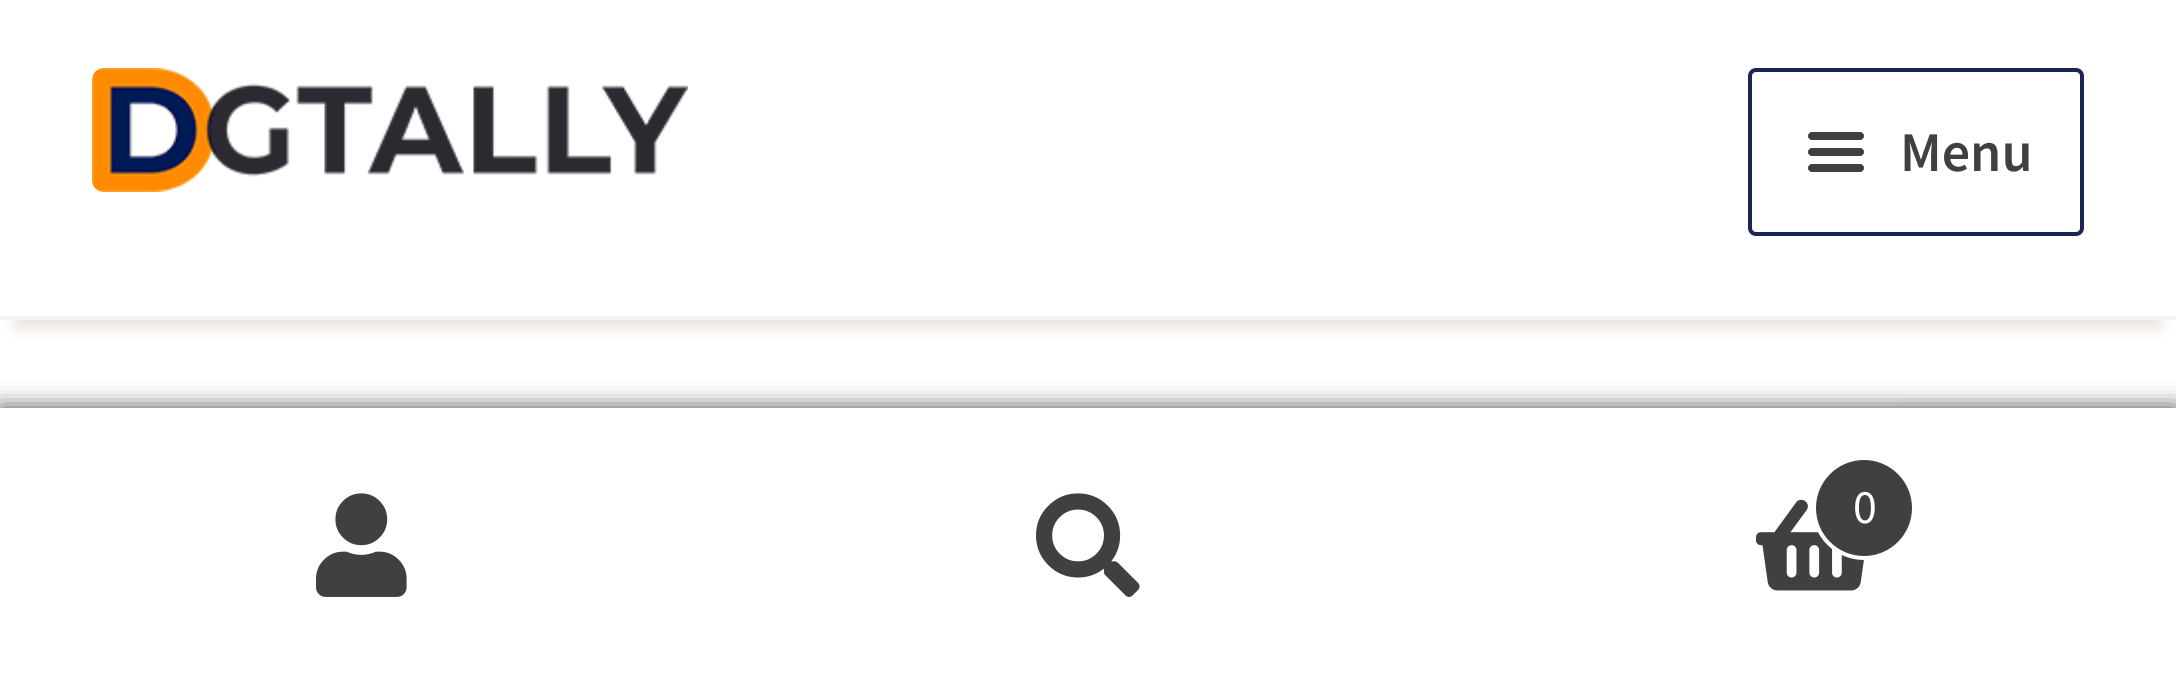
#include <cairo.h>
#include <math.h>
#include <stddef.h>

static cairo_t *ctx;

static void use_color(int r, int g, int b) {
    cairo_set_source_rgb(ctx, r / 255.0, g / 255.0, b / 255.0);
}

static void round_rect(double x, double y, double w, double h, double r) {
    cairo_new_sub_path(ctx);
    cairo_arc(ctx, x + w - r, y + h - r, r, 0, M_PI / 2);
    cairo_arc(ctx, x + r, y + h - r, r, M_PI / 2, M_PI);
    cairo_arc(ctx, x + r, y + r, r, M_PI, 1.5 * M_PI);
    cairo_arc(ctx, x + w - r, y + r, r, 1.5 * M_PI, 2 * M_PI);
    cairo_close_path(ctx);
}

static void shadow(double x, double y, double w, double h, double r, double blur, double alpha) {
    cairo_push_group_with_content(ctx, CAIRO_CONTENT_ALPHA);
    cairo_set_operator(ctx, CAIRO_OPERATOR_SOURCE);
    for (int i = 15; i >= -15 && fmin(w, h) + blur * i / 3 > 0; i -= 2) {
        double e = blur * i / 6;
        cairo_set_source_rgba(ctx, 0, 0, 0, alpha * erfc((i - 1) / 8.5) / 2);
        round_rect(x - e, y - e, w + 2 * e, h + 2 * e, fmax(0, fmin(r + e + blur * .6, fmin(w, h) / 2 + e)));
        cairo_fill(ctx);
    }
    cairo_pattern_t *soft = cairo_pop_group(ctx);
    cairo_mask(ctx, soft);
    cairo_pattern_destroy(soft);
}

static void picture(const char *path, double x, double y, double w, double h) {
    cairo_surface_t *image = cairo_image_surface_create_from_png(path);
    cairo_save(ctx);
    cairo_set_source_surface(ctx, image, x, y);
    cairo_rectangle(ctx, x, y, w, h);
    cairo_fill(ctx);
    cairo_restore(ctx);
    cairo_surface_destroy(image);
}

int main(void) {
    cairo_surface_t *surface = cairo_image_surface_create(CAIRO_FORMAT_RGB24, 2176, 681);
    ctx = cairo_create(surface);
    cairo_font_options_t *options = cairo_font_options_create();
    cairo_font_options_set_hint_metrics(options, CAIRO_HINT_METRICS_OFF);
    cairo_font_options_set_hint_style(options, CAIRO_HINT_STYLE_NONE);
    cairo_set_font_options(ctx, options);
    cairo_set_miter_limit(ctx, 4);
    use_color(255, 255, 255);
    cairo_paint(ctx);
    cairo_save(ctx);
    cairo_rectangle(ctx, 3, 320, 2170, 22);
    cairo_clip(ctx);
    use_color(203, 193, 179);
    shadow(16, 40, 2144, 288, 0, 8, 0.45);
    cairo_restore(ctx);
    use_color(244, 244, 244);
    cairo_rectangle(ctx, 0, 316, 2176, 4);
    cairo_fill(ctx);
    picture("img1.png", 92, 68, 596, 124);
    round_rect(1750, 70, 332, 164, 6);
    use_color(28, 38, 85);
    cairo_set_line_width(ctx, 4);
    cairo_stroke(ctx);
    use_color(64, 64, 64);
    round_rect(1808, 132, 56, 8, 4);
    cairo_fill(ctx);
    round_rect(1808, 148, 56, 8, 4);
    cairo_fill(ctx);
    cairo_select_font_face(ctx, "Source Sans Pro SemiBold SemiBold", CAIRO_FONT_SLANT_NORMAL, CAIRO_FONT_WEIGHT_NORMAL);
    cairo_set_font_size(ctx, 56);
    cairo_move_to(ctx, 1900, 171);
    cairo_show_text(ctx, "Menu");
    round_rect(1808, 164, 56, 8, 4);
    cairo_fill(ctx);
    use_color(0, 0, 0);
    shadow(0, 408, 2176, 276, 0, 12, 0.7);
    use_color(128, 128, 128);
    shadow(1896, 424, 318, 240, 8, 10, 1);
    use_color(255, 255, 255);
    cairo_rectangle(ctx, 0, 408, 2176, 4);
    cairo_fill(ctx);
    cairo_rectangle(ctx, 0, 412, 2176, 269);
    cairo_fill(ctx);
    picture("img2.png", 316, 493, 91, 104);
    picture("img3.png", 1036, 493, 104, 104);
    picture("img4.png", 1756, 499, 108, 92);
    use_color(64, 64, 64);
    cairo_arc(ctx, 1864, 508, 50, 0, 2 * M_PI);
    cairo_fill_preserve(ctx);
    use_color(255, 255, 255);
    cairo_stroke(ctx);
    cairo_select_font_face(ctx, "Source Sans Pro", CAIRO_FONT_SLANT_NORMAL, CAIRO_FONT_WEIGHT_NORMAL);
    cairo_set_font_size(ctx, 48);
    cairo_move_to(ctx, 1853, 523);
    cairo_show_text(ctx, "0");
    cairo_surface_write_to_png(surface, "result.png");
    cairo_font_options_destroy(options);
    cairo_destroy(ctx);
    cairo_surface_destroy(surface);
    return 0;
}
